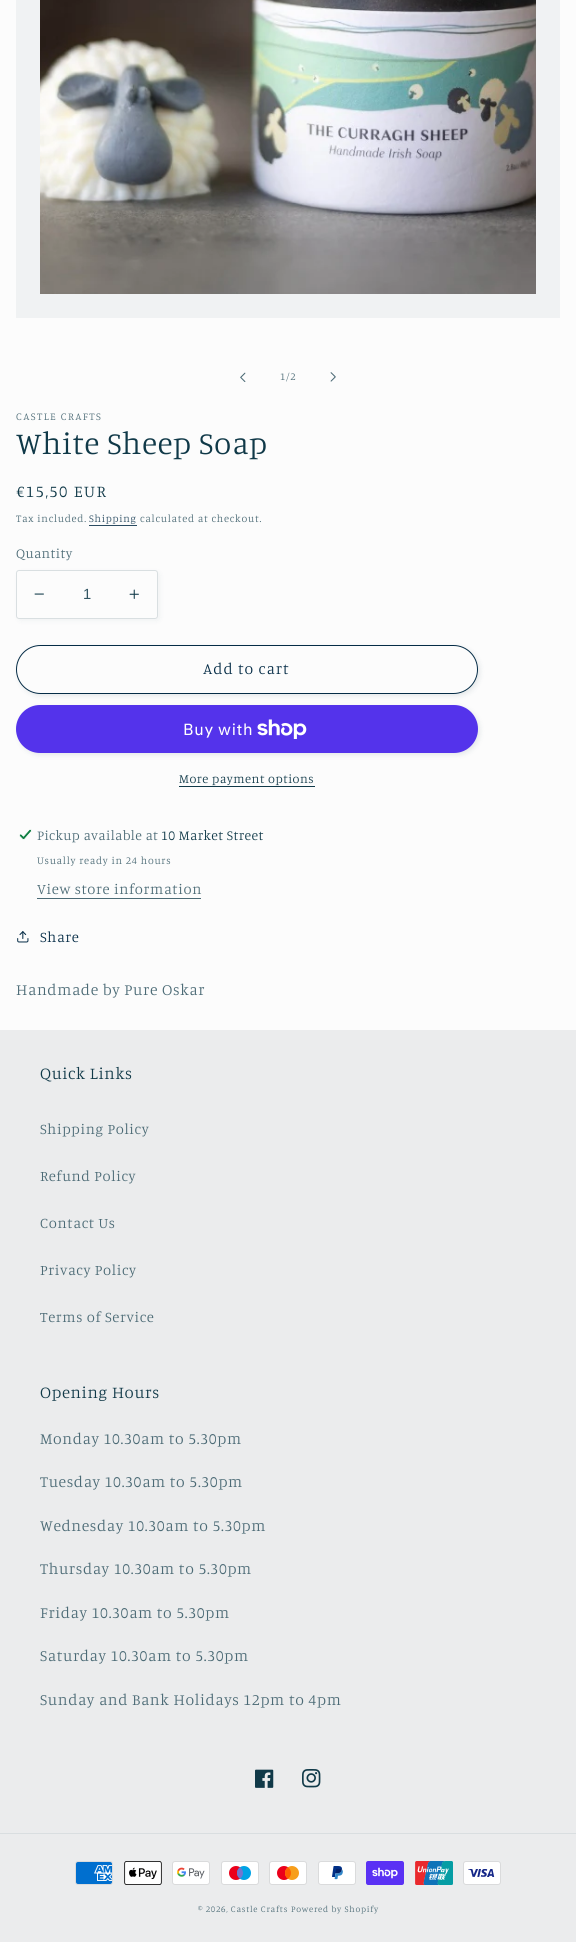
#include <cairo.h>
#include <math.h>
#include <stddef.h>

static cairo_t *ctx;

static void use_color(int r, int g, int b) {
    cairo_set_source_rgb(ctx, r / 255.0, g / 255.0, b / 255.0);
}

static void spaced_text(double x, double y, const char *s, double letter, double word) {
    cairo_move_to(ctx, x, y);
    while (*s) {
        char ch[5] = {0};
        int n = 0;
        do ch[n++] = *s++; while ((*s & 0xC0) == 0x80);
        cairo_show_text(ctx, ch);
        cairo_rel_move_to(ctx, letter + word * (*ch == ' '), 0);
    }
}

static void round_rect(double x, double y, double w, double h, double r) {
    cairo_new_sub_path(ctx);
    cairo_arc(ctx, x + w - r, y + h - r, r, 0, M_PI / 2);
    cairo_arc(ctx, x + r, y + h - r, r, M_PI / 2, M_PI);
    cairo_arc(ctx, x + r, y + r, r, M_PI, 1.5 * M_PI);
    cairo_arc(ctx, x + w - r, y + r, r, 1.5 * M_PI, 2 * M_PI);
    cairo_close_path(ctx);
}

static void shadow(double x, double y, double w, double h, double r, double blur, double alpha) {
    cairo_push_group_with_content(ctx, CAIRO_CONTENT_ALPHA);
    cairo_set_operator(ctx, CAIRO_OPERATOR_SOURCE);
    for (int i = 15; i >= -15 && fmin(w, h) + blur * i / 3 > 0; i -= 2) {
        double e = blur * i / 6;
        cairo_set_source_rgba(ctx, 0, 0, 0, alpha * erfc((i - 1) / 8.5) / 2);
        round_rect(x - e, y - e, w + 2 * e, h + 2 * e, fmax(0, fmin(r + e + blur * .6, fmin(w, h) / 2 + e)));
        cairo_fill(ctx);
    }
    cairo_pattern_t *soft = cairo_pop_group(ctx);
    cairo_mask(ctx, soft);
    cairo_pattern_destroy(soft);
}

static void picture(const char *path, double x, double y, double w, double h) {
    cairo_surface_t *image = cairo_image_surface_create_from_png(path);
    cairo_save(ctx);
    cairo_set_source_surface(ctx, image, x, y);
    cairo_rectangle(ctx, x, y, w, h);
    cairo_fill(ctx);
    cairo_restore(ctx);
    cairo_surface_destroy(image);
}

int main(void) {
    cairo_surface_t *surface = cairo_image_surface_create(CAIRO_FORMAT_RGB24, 576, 1942);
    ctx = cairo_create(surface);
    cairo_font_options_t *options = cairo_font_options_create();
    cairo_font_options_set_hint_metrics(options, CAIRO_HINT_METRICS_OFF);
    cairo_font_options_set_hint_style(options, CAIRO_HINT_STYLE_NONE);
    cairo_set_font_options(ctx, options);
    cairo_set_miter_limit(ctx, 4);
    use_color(252, 252, 252);
    cairo_paint(ctx);
    cairo_rectangle(ctx, 28, -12, 520, 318);
    use_color(240, 242, 243);
    cairo_set_line_width(ctx, 24);
    cairo_stroke(ctx);
    picture("img1.png", 40, 0, 496, 294);
    picture("img2.png", 240, 372, 6, 10);
    cairo_select_font_face(ctx, "Manuale Light", CAIRO_FONT_SLANT_NORMAL, CAIRO_FONT_WEIGHT_NORMAL);
    cairo_set_font_size(ctx, 10.5);
    use_color(75, 106, 117);
    spaced_text(280, 380, "1/2", 0.75, 0);
    picture("img3.png", 330, 372, 6, 10);
    spaced_text(16, 420, "CASTLE CRAFTS", 1.4, 0);
    cairo_set_font_size(ctx, 31.5);
    use_color(16, 57, 72);
    spaced_text(16, 454, "White Sheep Soap", 0.65, 0);
    cairo_set_font_size(ctx, 16.75);
    spaced_text(16, 497, "€15,50 EUR", 1.4, 0);
    cairo_set_font_size(ctx, 10.5);
    use_color(75, 106, 117);
    spaced_text(16, 522, "Tax included.", 0.75, 0);
    use_color(42, 75, 97);
    spaced_text(89, 522, "Shipping", 0.75, 0);
    cairo_rectangle(ctx, 89, 525, 48, 1);
    cairo_fill(ctx);
    use_color(75, 106, 117);
    spaced_text(140, 522, "calculated at checkout.", 0.75, 0);
    cairo_set_font_size(ctx, 13.75);
    spaced_text(16, 558, "Quantity", 0.4, 0);
    use_color(16, 57, 72);
    shadow(18, 572, 142, 49, 3, 2.5, 0.05);
    use_color(252, 252, 252);
    round_rect(16, 570, 142, 49, 3);
    cairo_fill(ctx);
    picture("img4.png", 34, 593, 10, 2);
    picture("img5.png", 129, 589, 10, 10);
    round_rect(16.5, 570.5, 141, 48, 2.5);
    use_color(217, 223, 225);
    cairo_set_line_width(ctx, 1);
    cairo_stroke(ctx);
    cairo_select_font_face(ctx, "Liberation Sans", CAIRO_FONT_SLANT_NORMAL, CAIRO_FONT_WEIGHT_NORMAL);
    cairo_set_font_size(ctx, 14.75);
    use_color(51, 86, 99);
    cairo_move_to(ctx, 83, 599);
    cairo_show_text(ctx, "1");
    use_color(16, 57, 72);
    shadow(18, 647, 462, 49, 24.5, 2.5, 0.1);
    use_color(252, 252, 252);
    round_rect(16, 645, 462, 49, 24.5);
    cairo_fill(ctx);
    round_rect(16.5, 645.5, 461, 48, 24);
    cairo_stroke(ctx);
    round_rect(16.5, 645.5, 461, 48, 24);
    use_color(5, 44, 70);
    cairo_stroke(ctx);
    cairo_select_font_face(ctx, "Manuale Light", CAIRO_FONT_SLANT_NORMAL, CAIRO_FONT_WEIGHT_NORMAL);
    cairo_set_font_size(ctx, 15.75);
    spaced_text(203, 674, "Add to cart", 1, 0);
    use_color(16, 57, 72);
    shadow(18, 707, 462, 48, 24, 2.5, 0.1);
    use_color(84, 51, 235);
    round_rect(16, 705, 462, 48, 24);
    cairo_fill(ctx);
    cairo_select_font_face(ctx, "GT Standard", CAIRO_FONT_SLANT_NORMAL, CAIRO_FONT_WEIGHT_NORMAL);
    cairo_set_font_size(ctx, 16);
    use_color(255, 255, 255);
    spaced_text(183, 735, "Buy with", 0.65, 0);
    picture("img6.png", 257, 719, 50, 20);
    cairo_select_font_face(ctx, "Manuale Light", CAIRO_FONT_SLANT_NORMAL, CAIRO_FONT_WEIGHT_NORMAL);
    cairo_set_font_size(ctx, 12.6);
    use_color(16, 57, 72);
    spaced_text(179, 783, "More payment options", 0.5, 0);
    cairo_rectangle(ctx, 179, 786, 136, 1);
    cairo_fill(ctx);
    picture("img7.png", 19, 829, 13, 11);
    cairo_set_font_size(ctx, 13.75);
    use_color(75, 106, 117);
    spaced_text(37, 840, "Pickup available at", 0.4, 0);
    use_color(16, 57, 72);
    spaced_text(161, 840, "10 Market Street", 0.4, 0);
    cairo_set_font_size(ctx, 10.5);
    use_color(75, 106, 117);
    spaced_text(37, 864, "Usually ready in 24 hours", 0.75, 0);
    cairo_set_font_size(ctx, 14.75);
    spaced_text(37, 894, "View store information", 0.65, 0);
    cairo_rectangle(ctx, 37, 898, 164, 1);
    cairo_fill(ctx);
    picture("img8.png", 17, 931, 12, 12);
    use_color(5, 44, 70);
    spaced_text(40, 942, "Share", 0.65, 0);
    cairo_set_font_size(ctx, 15.75);
    use_color(75, 106, 117);
    spaced_text(16, 995, "Handmade by Pure Oskar", 0.65, 0);
    use_color(235, 236, 237);
    cairo_rectangle(ctx, 0, 1030, 576, 912);
    cairo_fill(ctx);
    cairo_set_font_size(ctx, 16.75);
    use_color(16, 57, 72);
    spaced_text(40, 1079, "Quick Links", 0.65, 0);
    cairo_set_font_size(ctx, 14.75);
    use_color(75, 106, 117);
    spaced_text(40, 1134, "Shipping Policy", 0.65, 0);
    spaced_text(40, 1181, "Refund Policy", 0.65, 0);
    spaced_text(40, 1228, "Contact Us", 0.65, 0);
    spaced_text(40, 1275, "Privacy Policy", 0.65, 0);
    spaced_text(40, 1322, "Terms of Service", 0.65, 0);
    cairo_set_font_size(ctx, 16.75);
    use_color(16, 57, 72);
    spaced_text(40, 1398, "Opening Hours", 0.65, 0);
    cairo_set_font_size(ctx, 15.75);
    use_color(75, 106, 117);
    spaced_text(40, 1444, "Monday 10.30am to 5.30pm", 0.65, 0);
    spaced_text(40, 1487, "Tuesday 10.30am to 5.30pm", 0.65, 0);
    spaced_text(40, 1531, "Wednesday 10.30am to 5.30pm", 0.65, 0);
    spaced_text(40, 1574, "Thursday 10.30am to 5.30pm", 0.65, 0);
    spaced_text(40, 1618, "Friday 10.30am to 5.30pm", 0.65, 0);
    spaced_text(40, 1661, "Saturday 10.30am to 5.30pm", 0.65, 0);
    spaced_text(40, 1705, "Sunday and Bank Holidays 12pm to 4pm", 0.65, 0);
    picture("img9.png", 255, 1769, 19, 19);
    picture("img10.png", 302, 1769, 19, 19);
    use_color(217, 222, 224);
    cairo_rectangle(ctx, 0, 1833, 576, 1);
    cairo_fill(ctx);
    picture("img11.png", 75, 1861, 38, 24);
    picture("img12.png", 124, 1861, 38, 24);
    picture("img13.png", 172, 1861, 38, 24);
    picture("img14.png", 221, 1861, 38, 24);
    picture("img15.png", 269, 1861, 38, 24);
    picture("img16.png", 318, 1861, 38, 24);
    picture("img17.png", 366, 1861, 38, 24);
    picture("img18.png", 415, 1861, 38, 24);
    picture("img19.png", 463, 1861, 38, 24);
    cairo_set_font_size(ctx, 8.75);
    use_color(75, 106, 117);
    spaced_text(198, 1912, "© 2026, Castle Crafts", 0.75, 0);
    spaced_text(291, 1912, "Powered by Shopify", 0.75, 0);
    cairo_surface_write_to_png(surface, "result.png");
    cairo_font_options_destroy(options);
    cairo_destroy(ctx);
    cairo_surface_destroy(surface);
    return 0;
}
